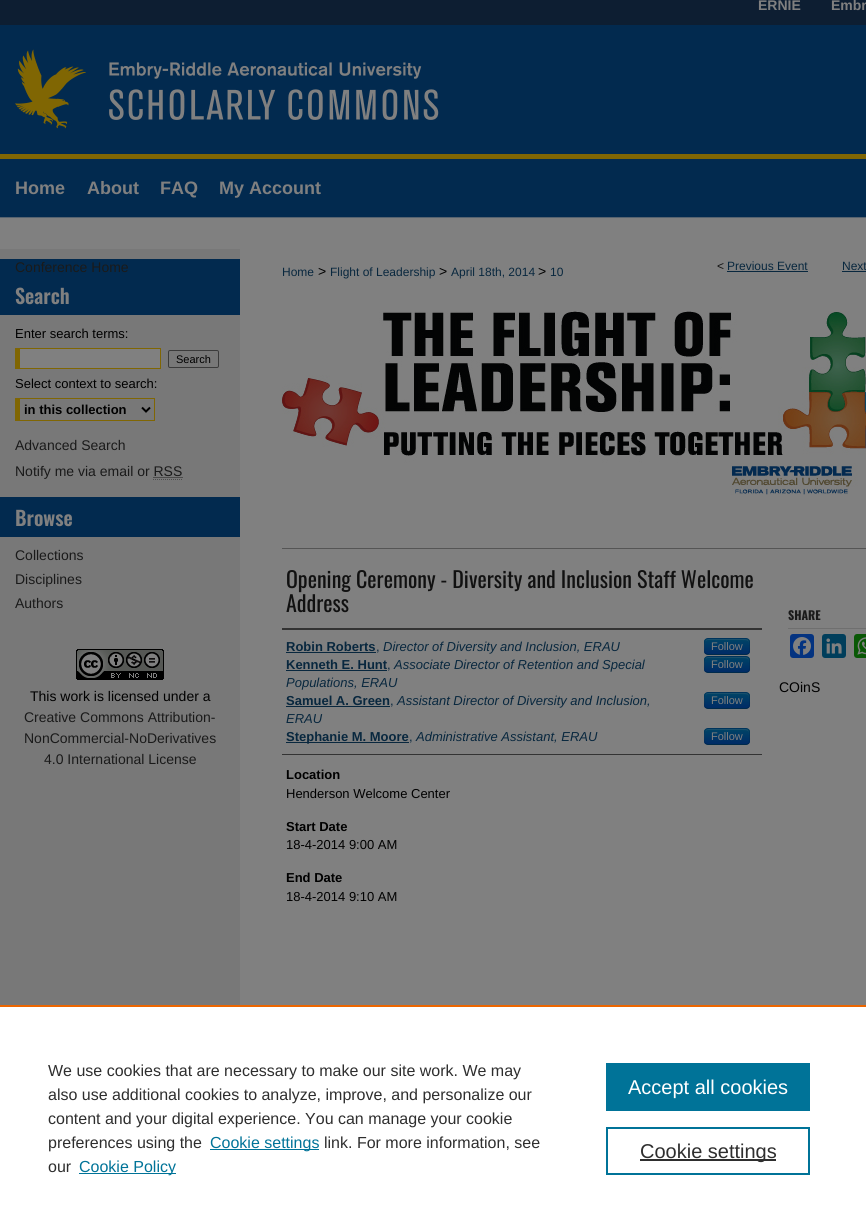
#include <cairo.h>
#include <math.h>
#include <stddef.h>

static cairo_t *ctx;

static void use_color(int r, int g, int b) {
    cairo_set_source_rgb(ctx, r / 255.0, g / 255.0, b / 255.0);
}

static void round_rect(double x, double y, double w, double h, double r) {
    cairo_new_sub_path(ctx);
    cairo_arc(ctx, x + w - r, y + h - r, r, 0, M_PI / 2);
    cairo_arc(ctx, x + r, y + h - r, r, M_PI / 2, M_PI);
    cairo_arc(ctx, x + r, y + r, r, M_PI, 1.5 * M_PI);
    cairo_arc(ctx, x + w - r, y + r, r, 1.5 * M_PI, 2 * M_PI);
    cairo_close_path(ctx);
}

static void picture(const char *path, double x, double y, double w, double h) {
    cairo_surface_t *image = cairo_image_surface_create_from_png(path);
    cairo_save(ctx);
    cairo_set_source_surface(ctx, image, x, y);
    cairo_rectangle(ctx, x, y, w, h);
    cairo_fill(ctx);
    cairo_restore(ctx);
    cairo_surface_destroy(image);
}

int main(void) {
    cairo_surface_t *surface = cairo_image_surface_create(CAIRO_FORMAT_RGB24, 866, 1231);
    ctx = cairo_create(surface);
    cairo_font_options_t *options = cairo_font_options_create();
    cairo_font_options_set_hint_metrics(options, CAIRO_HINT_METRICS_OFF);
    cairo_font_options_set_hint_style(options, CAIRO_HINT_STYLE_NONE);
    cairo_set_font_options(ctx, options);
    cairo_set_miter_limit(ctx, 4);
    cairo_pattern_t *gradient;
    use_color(128, 128, 128);
    cairo_paint(ctx);
    picture("img1.png", 0, 0, 866, 218);
    cairo_select_font_face(ctx, "Liberation Sans", CAIRO_FONT_SLANT_NORMAL, CAIRO_FONT_WEIGHT_BOLD);
    cairo_set_font_size(ctx, 14);
    use_color(128, 128, 128);
    cairo_move_to(ctx, 758, 10);
    cairo_show_text(ctx, "ERNIE");
    cairo_move_to(ctx, 831, 10);
    cairo_show_text(ctx, "Embr");
    picture("img2.png", 0, 49, 866, 110);
    cairo_set_font_size(ctx, 18);
    cairo_move_to(ctx, 15, 194);
    cairo_show_text(ctx, "Home");
    cairo_move_to(ctx, 87, 194);
    cairo_show_text(ctx, "About");
    cairo_move_to(ctx, 160, 194);
    cairo_show_text(ctx, "FAQ");
    cairo_move_to(ctx, 219, 194);
    cairo_show_text(ctx, "My Account");
    use_color(120, 120, 120);
    cairo_rectangle(ctx, 0, 249, 240, 756);
    cairo_fill(ctx);
    use_color(2, 42, 79);
    cairo_rectangle(ctx, 0, 259, 240, 56);
    cairo_fill(ctx);
    cairo_select_font_face(ctx, "Liberation Sans", CAIRO_FONT_SLANT_NORMAL, CAIRO_FONT_WEIGHT_NORMAL);
    cairo_set_font_size(ctx, 14);
    use_color(26, 26, 26);
    cairo_move_to(ctx, 15, 272);
    cairo_show_text(ctx, "Conference Home");
    cairo_select_font_face(ctx, "Oswald SemiBold", CAIRO_FONT_SLANT_NORMAL, CAIRO_FONT_WEIGHT_NORMAL);
    cairo_set_font_size(ctx, 20);
    use_color(128, 128, 128);
    cairo_move_to(ctx, 15, 304);
    cairo_show_text(ctx, "Search");
    cairo_select_font_face(ctx, "Liberation Sans", CAIRO_FONT_SLANT_NORMAL, CAIRO_FONT_WEIGHT_NORMAL);
    cairo_set_font_size(ctx, 13);
    use_color(0, 0, 0);
    cairo_move_to(ctx, 15, 338);
    cairo_show_text(ctx, "Enter search terms:");
    use_color(128, 128, 128);
    cairo_rectangle(ctx, 20, 349, 140, 19);
    cairo_fill(ctx);
    use_color(128, 102, 3);
    cairo_rectangle(ctx, 15, 348, 146, 1);
    cairo_fill(ctx);
    cairo_rectangle(ctx, 160, 348, 1, 21);
    cairo_fill(ctx);
    cairo_rectangle(ctx, 15, 368, 146, 1);
    cairo_fill(ctx);
    cairo_rectangle(ctx, 15, 348, 5, 21);
    cairo_fill(ctx);
    round_rect(168.5, 350.5, 50, 17, 1.5);
    use_color(59, 59, 59);
    cairo_set_line_width(ctx, 1);
    cairo_stroke(ctx);
    cairo_set_font_size(ctx, 11);
    use_color(0, 0, 0);
    cairo_move_to(ctx, 176, 363);
    cairo_show_text(ctx, "Search");
    cairo_set_font_size(ctx, 13);
    cairo_move_to(ctx, 15, 388);
    cairo_show_text(ctx, "Select context to search:");
    use_color(128, 102, 3);
    cairo_rectangle(ctx, 15, 398, 140, 1);
    cairo_fill(ctx);
    cairo_rectangle(ctx, 154, 398, 1, 23);
    cairo_fill(ctx);
    cairo_rectangle(ctx, 15, 420, 140, 1);
    cairo_fill(ctx);
    cairo_rectangle(ctx, 15, 398, 5, 23);
    cairo_fill(ctx);
    cairo_new_path(ctx);
    cairo_move_to(ctx, 142, 407.5);
    cairo_line_to(ctx, 146, 411.5);
    cairo_line_to(ctx, 150, 407.5);
    use_color(0, 0, 0);
    cairo_set_line_width(ctx, 2);
    cairo_stroke(ctx);
    cairo_select_font_face(ctx, "Liberation Sans", CAIRO_FONT_SLANT_NORMAL, CAIRO_FONT_WEIGHT_BOLD);
    cairo_move_to(ctx, 24, 414);
    cairo_show_text(ctx, "in this collection");
    cairo_select_font_face(ctx, "Liberation Sans", CAIRO_FONT_SLANT_NORMAL, CAIRO_FONT_WEIGHT_NORMAL);
    cairo_set_font_size(ctx, 14);
    use_color(26, 26, 26);
    cairo_move_to(ctx, 15, 450);
    cairo_show_text(ctx, "Advanced Search");
    cairo_move_to(ctx, 15, 476);
    cairo_show_text(ctx, "Notify me via email or RSS");
    cairo_new_path(ctx);
    cairo_move_to(ctx, 153.5, 477.5);
    cairo_line_to(ctx, 182.5, 477.5);
    use_color(30, 30, 30);
    cairo_set_line_width(ctx, 1);
    cairo_set_dash(ctx, (double[]){1, 1}, 2, 0);
    cairo_stroke(ctx);
    cairo_new_path(ctx);
    cairo_move_to(ctx, 153, 479.5);
    cairo_line_to(ctx, 182, 479.5);
    use_color(77, 77, 77);
    cairo_stroke(ctx);
    use_color(2, 42, 79);
    cairo_rectangle(ctx, 0, 497, 240, 40);
    cairo_fill(ctx);
    cairo_select_font_face(ctx, "Oswald SemiBold", CAIRO_FONT_SLANT_NORMAL, CAIRO_FONT_WEIGHT_NORMAL);
    cairo_set_font_size(ctx, 20);
    use_color(128, 128, 128);
    cairo_move_to(ctx, 15, 526);
    cairo_show_text(ctx, "Browse");
    cairo_select_font_face(ctx, "Liberation Sans", CAIRO_FONT_SLANT_NORMAL, CAIRO_FONT_WEIGHT_NORMAL);
    cairo_set_font_size(ctx, 14);
    use_color(26, 26, 26);
    cairo_move_to(ctx, 15, 560);
    cairo_show_text(ctx, "Collections");
    cairo_move_to(ctx, 15, 584);
    cairo_show_text(ctx, "Disciplines");
    cairo_move_to(ctx, 15, 608);
    cairo_show_text(ctx, "Authors");
    picture("img3.png", 76, 649, 88, 31);
    use_color(0, 0, 0);
    cairo_move_to(ctx, 30, 701);
    cairo_show_text(ctx, "This work is licensed under a");
    use_color(26, 26, 26);
    cairo_move_to(ctx, 24, 722);
    cairo_show_text(ctx, "Creative Commons Attribution-");
    cairo_move_to(ctx, 24, 743);
    cairo_show_text(ctx, "NonCommercial-NoDerivatives");
    cairo_move_to(ctx, 44, 764);
    cairo_show_text(ctx, "4.0 International License");
    cairo_set_font_size(ctx, 12);
    use_color(17, 17, 17);
    cairo_move_to(ctx, 717, 270);
    cairo_show_text(ctx, "<");
    use_color(8, 39, 62);
    cairo_move_to(ctx, 727, 270);
    cairo_show_text(ctx, "Previous Event");
    cairo_rectangle(ctx, 727, 271, 81, 1);
    cairo_fill(ctx);
    cairo_move_to(ctx, 842, 270);
    cairo_show_text(ctx, "Next");
    cairo_rectangle(ctx, 842, 271, 24, 1);
    cairo_fill(ctx);
    cairo_move_to(ctx, 282, 276);
    cairo_show_text(ctx, "Home");
    cairo_set_font_size(ctx, 14);
    use_color(0, 0, 0);
    cairo_move_to(ctx, 318, 276);
    cairo_show_text(ctx, ">");
    cairo_set_font_size(ctx, 12);
    use_color(8, 39, 62);
    cairo_move_to(ctx, 330, 276);
    cairo_show_text(ctx, "Flight of Leadership");
    cairo_set_font_size(ctx, 14);
    use_color(0, 0, 0);
    cairo_move_to(ctx, 439, 276);
    cairo_show_text(ctx, ">");
    cairo_set_font_size(ctx, 12);
    use_color(8, 39, 62);
    cairo_move_to(ctx, 451, 276);
    cairo_show_text(ctx, "April 18th, 2014");
    cairo_set_font_size(ctx, 14);
    use_color(0, 0, 0);
    cairo_move_to(ctx, 538, 276);
    cairo_show_text(ctx, ">");
    cairo_set_font_size(ctx, 12);
    use_color(8, 39, 62);
    cairo_move_to(ctx, 550, 276);
    cairo_show_text(ctx, "10");
    picture("img4.png", 282, 311, 584, 184);
    use_color(85, 85, 85);
    cairo_rectangle(ctx, 282, 548, 584, 1);
    cairo_fill(ctx);
    cairo_select_font_face(ctx, "Oswald", CAIRO_FONT_SLANT_NORMAL, CAIRO_FONT_WEIGHT_NORMAL);
    cairo_set_font_size(ctx, 22);
    use_color(17, 17, 17);
    cairo_move_to(ctx, 286, 588);
    cairo_show_text(ctx, "Opening Ceremony - Diversity and Inclusion Staff Welcome");
    cairo_move_to(ctx, 286, 612);
    cairo_show_text(ctx, "Address");
    use_color(51, 51, 51);
    cairo_rectangle(ctx, 282, 628, 480, 2);
    cairo_fill(ctx);
    cairo_rectangle(ctx, 282, 754, 480, 1);
    cairo_fill(ctx);
    cairo_select_font_face(ctx, "Liberation Sans", CAIRO_FONT_SLANT_NORMAL, CAIRO_FONT_WEIGHT_BOLD);
    cairo_set_font_size(ctx, 13);
    use_color(8, 39, 62);
    cairo_move_to(ctx, 286, 651);
    cairo_show_text(ctx, "Robin Roberts");
    cairo_rectangle(ctx, 286, 652, 90, 1);
    cairo_fill(ctx);
    cairo_select_font_face(ctx, "Liberation Sans", CAIRO_FONT_SLANT_NORMAL, CAIRO_FONT_WEIGHT_NORMAL);
    cairo_move_to(ctx, 376, 651);
    cairo_show_text(ctx, ",");
    cairo_select_font_face(ctx, "Liberation Sans", CAIRO_FONT_SLANT_ITALIC, CAIRO_FONT_WEIGHT_NORMAL);
    cairo_move_to(ctx, 383, 651);
    cairo_show_text(ctx, "Director of Diversity and Inclusion, ERAU");
    use_color(0, 58, 102);
    round_rect(704, 638, 46, 17, 4);
    cairo_fill(ctx);
    cairo_save(ctx);
    round_rect(704, 638, 46, 17, 4);
    cairo_clip(ctx);
    gradient = cairo_pattern_create_linear(727, 639, 727, 654);
    cairo_pattern_add_color_stop_rgba(gradient, 0, 0, 0.267, 0.4, 1);
    cairo_pattern_add_color_stop_rgba(gradient, 1, 0, 0.169, 0.4, 1);
    cairo_set_source(ctx, gradient);
    cairo_pattern_destroy(gradient);
    cairo_rectangle(ctx, 704, 639, 46, 15);
    cairo_fill(ctx);
    cairo_restore(ctx);
    cairo_set_source_rgba(ctx, 0.502, 0.502, 0.502, 0.2);
    cairo_new_path(ctx);
    cairo_move_to(ctx, 708, 640);
    cairo_line_to(ctx, 741, 640);
    cairo_curve_to(ctx, 748, 640, 749, 640, 749, 646);
    cairo_line_to(ctx, 749, 652);
    cairo_line_to(ctx, 749, 645);
    cairo_curve_to(ctx, 749, 638, 747, 639, 740, 639);
    cairo_line_to(ctx, 714, 639);
    cairo_curve_to(ctx, 707, 639, 705, 638, 705, 645);
    cairo_line_to(ctx, 705, 653);
    cairo_curve_to(ctx, 705, 650, 703, 640, 708, 640);
    cairo_close_path(ctx);
    cairo_fill(ctx);
    cairo_new_path(ctx);
    cairo_move_to(ctx, 748.5, 653.5);
    cairo_curve_to(ctx, 748, 654, 747, 654.5, 746, 654.5);
    cairo_line_to(ctx, 708, 654.5);
    cairo_curve_to(ctx, 707, 654.5, 706, 654, 705.5, 653.5);
    cairo_set_source_rgba(ctx, 0, 0, 0, 0.25);
    cairo_set_dash(ctx, NULL, 0, 0);
    cairo_stroke(ctx);
    cairo_new_path(ctx);
    cairo_move_to(ctx, 705.5, 653.5);
    cairo_curve_to(ctx, 704, 651.5, 704.5, 648.5, 704.5, 646.5);
    cairo_curve_to(ctx, 704.5, 637.5, 705, 638.5, 714.5, 638.5);
    cairo_line_to(ctx, 739.5, 638.5);
    cairo_curve_to(ctx, 749, 638.5, 749.5, 637.5, 749.5, 646.5);
    cairo_curve_to(ctx, 749.5, 648.5, 750, 651.5, 748.5, 653.5);
    cairo_set_source_rgba(ctx, 0, 0, 0, 0.1);
    cairo_stroke(ctx);
    cairo_select_font_face(ctx, "Liberation Sans", CAIRO_FONT_SLANT_NORMAL, CAIRO_FONT_WEIGHT_NORMAL);
    cairo_set_font_size(ctx, 11);
    use_color(128, 128, 128);
    cairo_move_to(ctx, 711, 650);
    cairo_show_text(ctx, "Follow");
    cairo_select_font_face(ctx, "Liberation Sans", CAIRO_FONT_SLANT_NORMAL, CAIRO_FONT_WEIGHT_BOLD);
    cairo_set_font_size(ctx, 13);
    use_color(8, 39, 62);
    cairo_move_to(ctx, 286, 669);
    cairo_show_text(ctx, "Kenneth E. Hunt");
    cairo_rectangle(ctx, 286, 670, 101, 1);
    cairo_fill(ctx);
    cairo_select_font_face(ctx, "Liberation Sans", CAIRO_FONT_SLANT_NORMAL, CAIRO_FONT_WEIGHT_NORMAL);
    cairo_move_to(ctx, 387, 669);
    cairo_show_text(ctx, ",");
    cairo_select_font_face(ctx, "Liberation Sans", CAIRO_FONT_SLANT_ITALIC, CAIRO_FONT_WEIGHT_NORMAL);
    cairo_move_to(ctx, 394, 669);
    cairo_show_text(ctx, "Associate Director of Retention and Special");
    cairo_move_to(ctx, 286, 687);
    cairo_show_text(ctx, "Populations, ERAU");
    use_color(0, 58, 102);
    round_rect(704, 656, 46, 17, 4);
    cairo_fill(ctx);
    cairo_save(ctx);
    round_rect(704, 656, 46, 17, 4);
    cairo_clip(ctx);
    gradient = cairo_pattern_create_linear(727, 657, 727, 672);
    cairo_pattern_add_color_stop_rgba(gradient, 0, 0, 0.267, 0.4, 1);
    cairo_pattern_add_color_stop_rgba(gradient, 1, 0, 0.169, 0.4, 1);
    cairo_set_source(ctx, gradient);
    cairo_pattern_destroy(gradient);
    cairo_rectangle(ctx, 704, 657, 46, 15);
    cairo_fill(ctx);
    cairo_restore(ctx);
    cairo_set_source_rgba(ctx, 0.502, 0.502, 0.502, 0.2);
    cairo_new_path(ctx);
    cairo_move_to(ctx, 708, 658);
    cairo_line_to(ctx, 741, 658);
    cairo_curve_to(ctx, 748, 658, 749, 658, 749, 664);
    cairo_line_to(ctx, 749, 670);
    cairo_line_to(ctx, 749, 663);
    cairo_curve_to(ctx, 749, 656, 747, 657, 740, 657);
    cairo_line_to(ctx, 714, 657);
    cairo_curve_to(ctx, 707, 657, 705, 656, 705, 663);
    cairo_line_to(ctx, 705, 671);
    cairo_curve_to(ctx, 705, 668, 703, 658, 708, 658);
    cairo_close_path(ctx);
    cairo_fill(ctx);
    cairo_new_path(ctx);
    cairo_move_to(ctx, 748.5, 671.5);
    cairo_curve_to(ctx, 748, 672, 747, 672.5, 746, 672.5);
    cairo_line_to(ctx, 708, 672.5);
    cairo_curve_to(ctx, 707, 672.5, 706, 672, 705.5, 671.5);
    cairo_set_source_rgba(ctx, 0, 0, 0, 0.25);
    cairo_stroke(ctx);
    cairo_new_path(ctx);
    cairo_move_to(ctx, 705.5, 671.5);
    cairo_curve_to(ctx, 704, 669.5, 704.5, 666.5, 704.5, 664.5);
    cairo_curve_to(ctx, 704.5, 655.5, 705, 656.5, 714.5, 656.5);
    cairo_line_to(ctx, 739.5, 656.5);
    cairo_curve_to(ctx, 749, 656.5, 749.5, 655.5, 749.5, 664.5);
    cairo_curve_to(ctx, 749.5, 666.5, 750, 669.5, 748.5, 671.5);
    cairo_set_source_rgba(ctx, 0, 0, 0, 0.1);
    cairo_stroke(ctx);
    cairo_select_font_face(ctx, "Liberation Sans", CAIRO_FONT_SLANT_NORMAL, CAIRO_FONT_WEIGHT_NORMAL);
    cairo_set_font_size(ctx, 11);
    use_color(128, 128, 128);
    cairo_move_to(ctx, 711, 668);
    cairo_show_text(ctx, "Follow");
    cairo_select_font_face(ctx, "Liberation Sans", CAIRO_FONT_SLANT_NORMAL, CAIRO_FONT_WEIGHT_BOLD);
    cairo_set_font_size(ctx, 13);
    use_color(8, 39, 62);
    cairo_move_to(ctx, 286, 705);
    cairo_show_text(ctx, "Samuel A. Green");
    cairo_rectangle(ctx, 286, 706, 104, 1);
    cairo_fill(ctx);
    cairo_select_font_face(ctx, "Liberation Sans", CAIRO_FONT_SLANT_NORMAL, CAIRO_FONT_WEIGHT_NORMAL);
    cairo_move_to(ctx, 390, 705);
    cairo_show_text(ctx, ",");
    cairo_select_font_face(ctx, "Liberation Sans", CAIRO_FONT_SLANT_ITALIC, CAIRO_FONT_WEIGHT_NORMAL);
    cairo_move_to(ctx, 397, 705);
    cairo_show_text(ctx, "Assistant Director of Diversity and Inclusion,");
    cairo_move_to(ctx, 286, 723);
    cairo_show_text(ctx, "ERAU");
    use_color(0, 58, 102);
    round_rect(704, 692, 46, 17, 4);
    cairo_fill(ctx);
    cairo_save(ctx);
    round_rect(704, 692, 46, 17, 4);
    cairo_clip(ctx);
    gradient = cairo_pattern_create_linear(727, 693, 727, 708);
    cairo_pattern_add_color_stop_rgba(gradient, 0, 0, 0.267, 0.4, 1);
    cairo_pattern_add_color_stop_rgba(gradient, 1, 0, 0.169, 0.4, 1);
    cairo_set_source(ctx, gradient);
    cairo_pattern_destroy(gradient);
    cairo_rectangle(ctx, 704, 693, 46, 15);
    cairo_fill(ctx);
    cairo_restore(ctx);
    cairo_set_source_rgba(ctx, 0.502, 0.502, 0.502, 0.2);
    cairo_new_path(ctx);
    cairo_move_to(ctx, 708, 694);
    cairo_line_to(ctx, 741, 694);
    cairo_curve_to(ctx, 748, 694, 749, 694, 749, 700);
    cairo_line_to(ctx, 749, 706);
    cairo_line_to(ctx, 749, 699);
    cairo_curve_to(ctx, 749, 692, 747, 693, 740, 693);
    cairo_line_to(ctx, 714, 693);
    cairo_curve_to(ctx, 707, 693, 705, 692, 705, 699);
    cairo_line_to(ctx, 705, 707);
    cairo_curve_to(ctx, 705, 704, 703, 694, 708, 694);
    cairo_close_path(ctx);
    cairo_fill(ctx);
    cairo_new_path(ctx);
    cairo_move_to(ctx, 748.5, 707.5);
    cairo_curve_to(ctx, 748, 708, 747, 708.5, 746, 708.5);
    cairo_line_to(ctx, 708, 708.5);
    cairo_curve_to(ctx, 707, 708.5, 706, 708, 705.5, 707.5);
    cairo_set_source_rgba(ctx, 0, 0, 0, 0.25);
    cairo_stroke(ctx);
    cairo_new_path(ctx);
    cairo_move_to(ctx, 705.5, 707.5);
    cairo_curve_to(ctx, 704, 705.5, 704.5, 702.5, 704.5, 700.5);
    cairo_curve_to(ctx, 704.5, 691.5, 705, 692.5, 714.5, 692.5);
    cairo_line_to(ctx, 739.5, 692.5);
    cairo_curve_to(ctx, 749, 692.5, 749.5, 691.5, 749.5, 700.5);
    cairo_curve_to(ctx, 749.5, 702.5, 750, 705.5, 748.5, 707.5);
    cairo_set_source_rgba(ctx, 0, 0, 0, 0.1);
    cairo_stroke(ctx);
    cairo_select_font_face(ctx, "Liberation Sans", CAIRO_FONT_SLANT_NORMAL, CAIRO_FONT_WEIGHT_NORMAL);
    cairo_set_font_size(ctx, 11);
    use_color(128, 128, 128);
    cairo_move_to(ctx, 711, 704);
    cairo_show_text(ctx, "Follow");
    use_color(8, 39, 62);
    cairo_rectangle(ctx, 286, 742, 123, 1);
    cairo_fill(ctx);
    cairo_select_font_face(ctx, "Liberation Sans", CAIRO_FONT_SLANT_NORMAL, CAIRO_FONT_WEIGHT_BOLD);
    cairo_set_font_size(ctx, 13);
    cairo_move_to(ctx, 286, 741);
    cairo_show_text(ctx, "Stephanie M. Moore");
    cairo_select_font_face(ctx, "Liberation Sans", CAIRO_FONT_SLANT_NORMAL, CAIRO_FONT_WEIGHT_NORMAL);
    cairo_move_to(ctx, 409, 741);
    cairo_show_text(ctx, ",");
    cairo_select_font_face(ctx, "Liberation Sans", CAIRO_FONT_SLANT_ITALIC, CAIRO_FONT_WEIGHT_NORMAL);
    cairo_move_to(ctx, 416, 741);
    cairo_show_text(ctx, "Administrative Assistant, ERAU");
    use_color(0, 58, 102);
    round_rect(704, 728, 46, 17, 4);
    cairo_fill(ctx);
    cairo_save(ctx);
    round_rect(704, 728, 46, 17, 4);
    cairo_clip(ctx);
    gradient = cairo_pattern_create_linear(727, 729, 727, 744);
    cairo_pattern_add_color_stop_rgba(gradient, 0, 0, 0.267, 0.4, 1);
    cairo_pattern_add_color_stop_rgba(gradient, 1, 0, 0.169, 0.4, 1);
    cairo_set_source(ctx, gradient);
    cairo_pattern_destroy(gradient);
    cairo_rectangle(ctx, 704, 729, 46, 15);
    cairo_fill(ctx);
    cairo_restore(ctx);
    cairo_set_source_rgba(ctx, 0.502, 0.502, 0.502, 0.2);
    cairo_new_path(ctx);
    cairo_move_to(ctx, 708, 730);
    cairo_line_to(ctx, 741, 730);
    cairo_curve_to(ctx, 748, 730, 749, 730, 749, 736);
    cairo_line_to(ctx, 749, 742);
    cairo_line_to(ctx, 749, 735);
    cairo_curve_to(ctx, 749, 728, 747, 729, 740, 729);
    cairo_line_to(ctx, 714, 729);
    cairo_curve_to(ctx, 707, 729, 705, 728, 705, 735);
    cairo_line_to(ctx, 705, 743);
    cairo_curve_to(ctx, 705, 740, 703, 730, 708, 730);
    cairo_close_path(ctx);
    cairo_fill(ctx);
    cairo_new_path(ctx);
    cairo_move_to(ctx, 748.5, 743.5);
    cairo_curve_to(ctx, 748, 744, 747, 744.5, 746, 744.5);
    cairo_line_to(ctx, 708, 744.5);
    cairo_curve_to(ctx, 707, 744.5, 706, 744, 705.5, 743.5);
    cairo_set_source_rgba(ctx, 0, 0, 0, 0.25);
    cairo_stroke(ctx);
    cairo_new_path(ctx);
    cairo_move_to(ctx, 705.5, 743.5);
    cairo_curve_to(ctx, 704, 741.5, 704.5, 738.5, 704.5, 736.5);
    cairo_curve_to(ctx, 704.5, 727.5, 705, 728.5, 714.5, 728.5);
    cairo_line_to(ctx, 739.5, 728.5);
    cairo_curve_to(ctx, 749, 728.5, 749.5, 727.5, 749.5, 736.5);
    cairo_curve_to(ctx, 749.5, 738.5, 750, 741.5, 748.5, 743.5);
    cairo_set_source_rgba(ctx, 0, 0, 0, 0.1);
    cairo_stroke(ctx);
    cairo_select_font_face(ctx, "Liberation Sans", CAIRO_FONT_SLANT_NORMAL, CAIRO_FONT_WEIGHT_NORMAL);
    cairo_set_font_size(ctx, 11);
    use_color(128, 128, 128);
    cairo_move_to(ctx, 711, 740);
    cairo_show_text(ctx, "Follow");
    cairo_select_font_face(ctx, "Liberation Sans", CAIRO_FONT_SLANT_NORMAL, CAIRO_FONT_WEIGHT_BOLD);
    cairo_set_font_size(ctx, 13);
    use_color(0, 0, 0);
    cairo_move_to(ctx, 286, 779);
    cairo_show_text(ctx, "Location");
    cairo_select_font_face(ctx, "Liberation Sans", CAIRO_FONT_SLANT_NORMAL, CAIRO_FONT_WEIGHT_NORMAL);
    cairo_move_to(ctx, 286, 798);
    cairo_show_text(ctx, "Henderson Welcome Center");
    cairo_select_font_face(ctx, "Liberation Sans", CAIRO_FONT_SLANT_NORMAL, CAIRO_FONT_WEIGHT_BOLD);
    cairo_move_to(ctx, 286, 831);
    cairo_show_text(ctx, "Start Date");
    cairo_select_font_face(ctx, "Liberation Sans", CAIRO_FONT_SLANT_NORMAL, CAIRO_FONT_WEIGHT_NORMAL);
    cairo_move_to(ctx, 286, 849);
    cairo_show_text(ctx, "18-4-2014 9:00 AM");
    cairo_select_font_face(ctx, "Liberation Sans", CAIRO_FONT_SLANT_NORMAL, CAIRO_FONT_WEIGHT_BOLD);
    cairo_move_to(ctx, 286, 882);
    cairo_show_text(ctx, "End Date");
    cairo_select_font_face(ctx, "Liberation Sans", CAIRO_FONT_SLANT_NORMAL, CAIRO_FONT_WEIGHT_NORMAL);
    cairo_move_to(ctx, 286, 901);
    cairo_show_text(ctx, "18-4-2014 9:10 AM");
    use_color(111, 111, 111);
    cairo_rectangle(ctx, 788, 628, 78, 1);
    cairo_fill(ctx);
    cairo_select_font_face(ctx, "Oswald", CAIRO_FONT_SLANT_NORMAL, CAIRO_FONT_WEIGHT_BOLD);
    cairo_set_font_size(ctx, 12);
    use_color(26, 26, 26);
    cairo_move_to(ctx, 788, 620);
    cairo_show_text(ctx, "SHARE");
    use_color(4, 51, 128);
    round_rect(790, 634, 24, 24, 3);
    cairo_fill(ctx);
    picture("img5.png", 793, 637, 18, 18);
    use_color(0, 62, 91);
    round_rect(822, 634, 24, 24, 3);
    cairo_fill(ctx);
    picture("img6.png", 826, 638, 16, 16);
    use_color(9, 88, 5);
    round_rect(854, 634, 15, 24, 3);
    cairo_fill(ctx);
    picture("img7.png", 857, 637, 9, 18);
    cairo_select_font_face(ctx, "Liberation Sans", CAIRO_FONT_SLANT_NORMAL, CAIRO_FONT_WEIGHT_NORMAL);
    cairo_set_font_size(ctx, 14);
    use_color(0, 0, 0);
    cairo_move_to(ctx, 779, 692);
    cairo_show_text(ctx, "COinS");
    use_color(255, 255, 255);
    cairo_rectangle(ctx, 0, 1007, 866, 224);
    cairo_fill(ctx);
    use_color(235, 101, 0);
    cairo_rectangle(ctx, 0, 1005, 866, 2);
    cairo_fill(ctx);
    cairo_set_font_size(ctx, 16);
    use_color(46, 46, 46);
    cairo_move_to(ctx, 48, 1076);
    cairo_show_text(ctx, "We use cookies that are necessary to make our site work. We may");
    cairo_move_to(ctx, 48, 1100);
    cairo_show_text(ctx, "also use additional cookies to analyze, improve, and personalize our");
    cairo_move_to(ctx, 48, 1124);
    cairo_show_text(ctx, "content and your digital experience. You can manage your cookie");
    cairo_move_to(ctx, 48, 1148);
    cairo_show_text(ctx, "preferences using the");
    use_color(0, 115, 152);
    cairo_rectangle(ctx, 210, 1149, 109, 1);
    cairo_fill(ctx);
    cairo_move_to(ctx, 210, 1148);
    cairo_show_text(ctx, "Cookie settings");
    use_color(46, 46, 46);
    cairo_move_to(ctx, 324, 1148);
    cairo_show_text(ctx, "link. For more information, see");
    cairo_move_to(ctx, 48, 1172);
    cairo_show_text(ctx, "our");
    use_color(0, 115, 152);
    cairo_rectangle(ctx, 79, 1173, 97, 1);
    cairo_fill(ctx);
    cairo_move_to(ctx, 79, 1172);
    cairo_show_text(ctx, "Cookie Policy");
    cairo_rectangle(ctx, 606, 1063, 204, 48);
    cairo_fill(ctx);
    cairo_set_font_size(ctx, 20);
    use_color(255, 255, 255);
    cairo_move_to(ctx, 628, 1094);
    cairo_show_text(ctx, "Accept all cookies");
    cairo_rectangle(ctx, 607, 1128, 202, 46);
    use_color(0, 115, 152);
    cairo_set_line_width(ctx, 2);
    cairo_stroke(ctx);
    use_color(46, 46, 46);
    cairo_rectangle(ctx, 640, 1159, 136, 2);
    cairo_fill(ctx);
    cairo_move_to(ctx, 640, 1158);
    cairo_show_text(ctx, "Cookie settings");
    cairo_surface_write_to_png(surface, "result.png");
    cairo_font_options_destroy(options);
    cairo_destroy(ctx);
    cairo_surface_destroy(surface);
    return 0;
}
